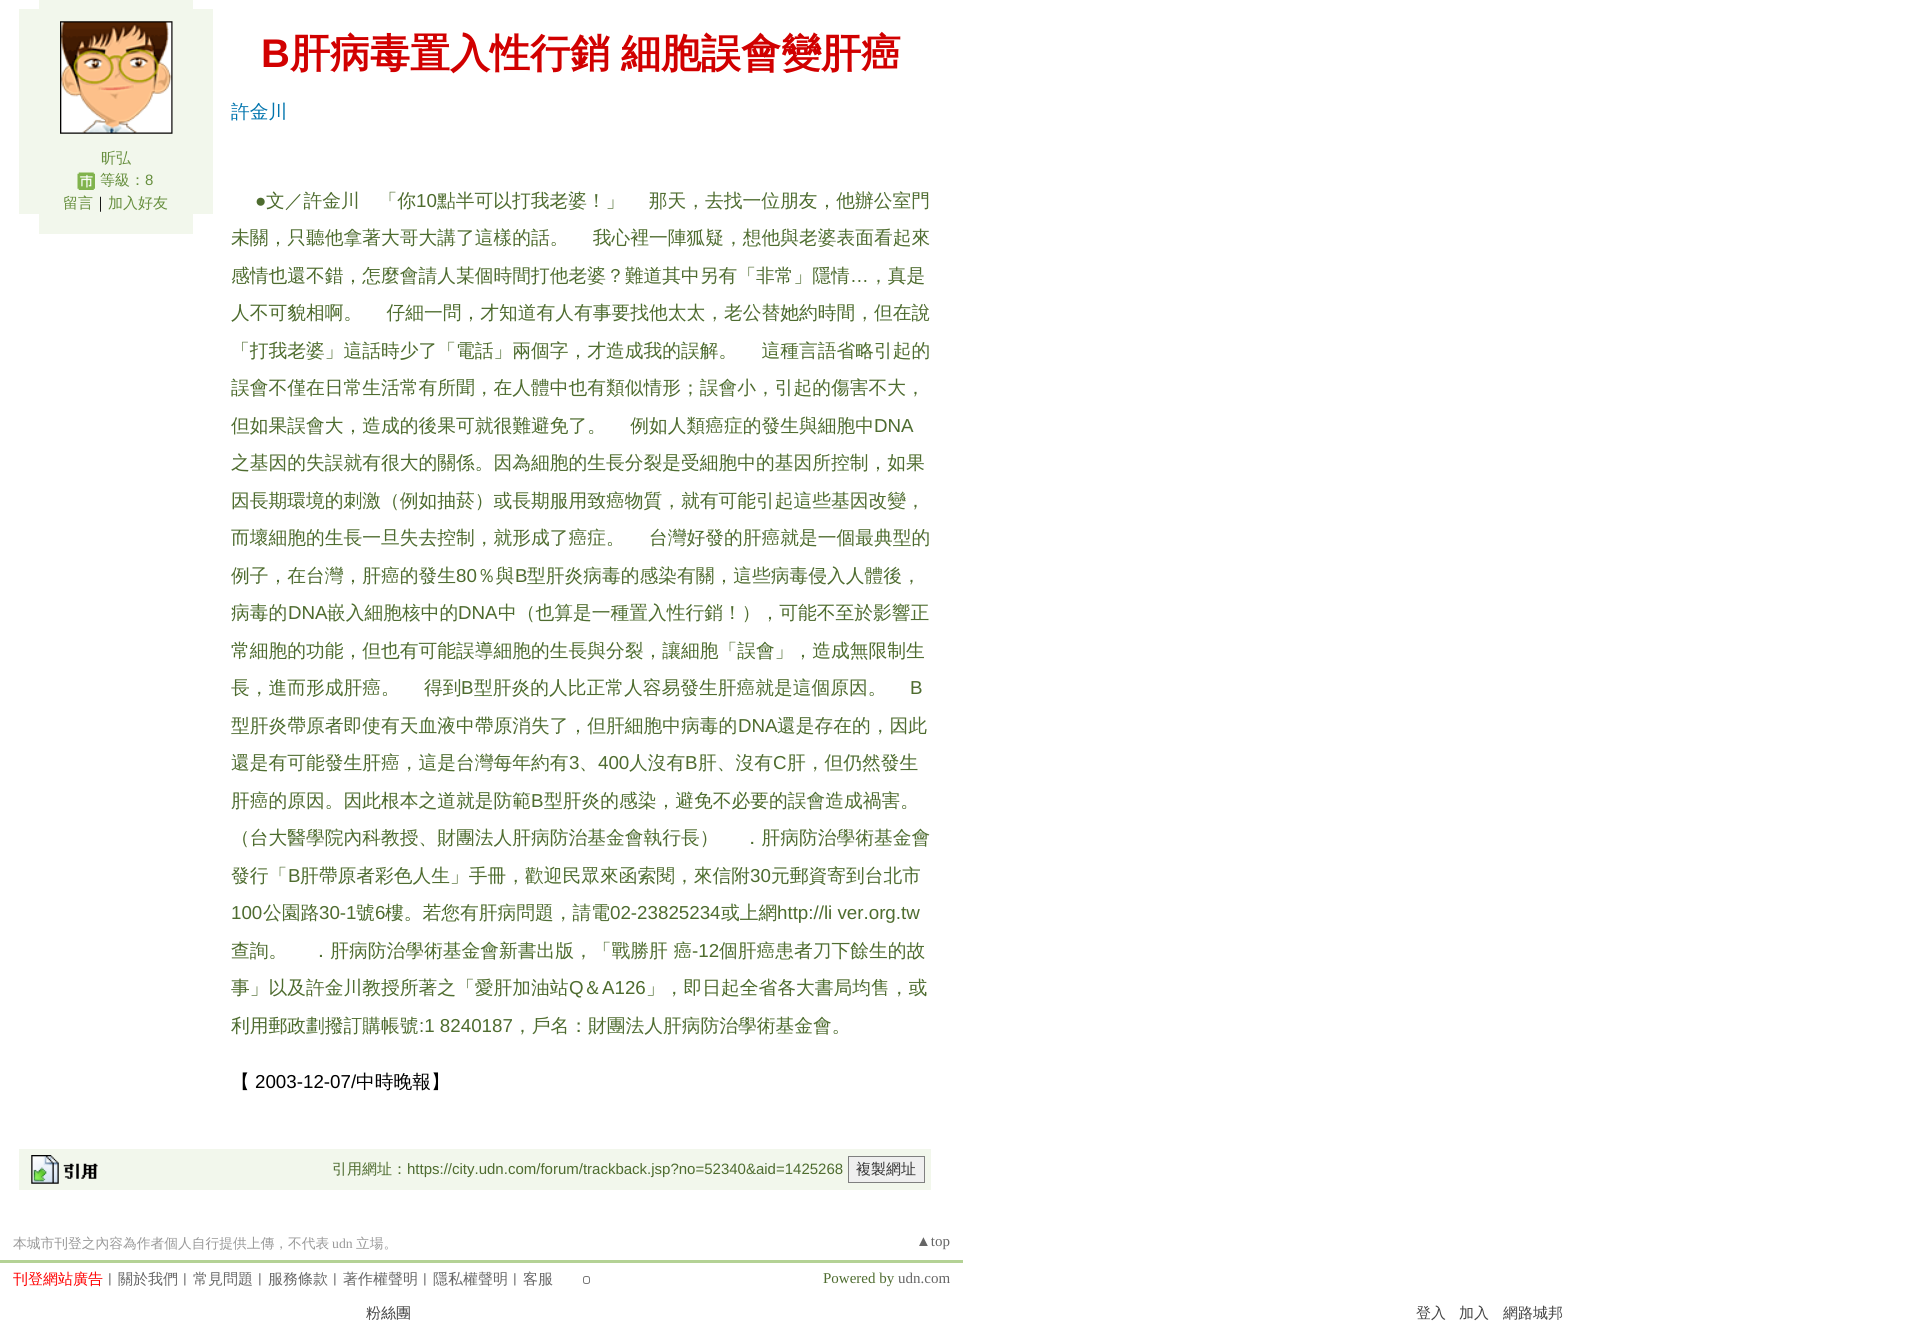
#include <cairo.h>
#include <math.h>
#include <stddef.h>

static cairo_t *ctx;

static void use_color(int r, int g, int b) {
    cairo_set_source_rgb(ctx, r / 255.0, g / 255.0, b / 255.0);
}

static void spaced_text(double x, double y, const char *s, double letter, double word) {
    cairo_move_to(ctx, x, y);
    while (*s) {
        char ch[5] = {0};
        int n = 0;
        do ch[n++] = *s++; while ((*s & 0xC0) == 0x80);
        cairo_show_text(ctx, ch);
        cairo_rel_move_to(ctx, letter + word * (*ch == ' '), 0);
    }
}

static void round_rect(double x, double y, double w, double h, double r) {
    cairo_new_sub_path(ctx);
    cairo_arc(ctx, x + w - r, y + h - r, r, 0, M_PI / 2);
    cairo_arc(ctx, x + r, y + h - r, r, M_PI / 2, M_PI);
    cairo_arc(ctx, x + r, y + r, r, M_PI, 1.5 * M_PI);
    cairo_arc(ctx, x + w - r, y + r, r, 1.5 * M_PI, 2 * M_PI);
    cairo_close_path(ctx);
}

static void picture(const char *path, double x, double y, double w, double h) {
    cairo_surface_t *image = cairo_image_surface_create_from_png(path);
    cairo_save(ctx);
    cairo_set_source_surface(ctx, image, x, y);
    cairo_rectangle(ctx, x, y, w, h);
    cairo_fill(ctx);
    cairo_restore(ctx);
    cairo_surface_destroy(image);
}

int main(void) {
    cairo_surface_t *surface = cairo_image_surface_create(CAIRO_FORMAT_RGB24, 1929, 1331);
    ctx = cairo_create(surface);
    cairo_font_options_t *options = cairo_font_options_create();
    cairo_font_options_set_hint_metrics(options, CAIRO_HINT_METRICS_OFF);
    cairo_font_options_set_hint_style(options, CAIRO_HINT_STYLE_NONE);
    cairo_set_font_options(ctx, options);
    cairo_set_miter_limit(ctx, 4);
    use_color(255, 255, 255);
    cairo_paint(ctx);
    use_color(242, 247, 236);
    cairo_rectangle(ctx, 39, 0, 154, 9);
    cairo_fill(ctx);
    cairo_rectangle(ctx, 19, 9, 194, 205);
    cairo_fill(ctx);
    picture("img1.png", 60, 21, 113, 113);
    cairo_select_font_face(ctx, "WenQuanYi Zen Hei Medium", CAIRO_FONT_SLANT_NORMAL, CAIRO_FONT_WEIGHT_NORMAL);
    cairo_set_font_size(ctx, 15);
    use_color(103, 143, 62);
    cairo_move_to(ctx, 101, 163);
    cairo_show_text(ctx, "昕弘");
    picture("img2.png", 77, 172, 18, 18);
    cairo_move_to(ctx, 100, 185);
    cairo_show_text(ctx, "等級：");
    cairo_select_font_face(ctx, "Liberation Sans", CAIRO_FONT_SLANT_NORMAL, CAIRO_FONT_WEIGHT_NORMAL);
    cairo_move_to(ctx, 145, 185);
    cairo_show_text(ctx, "8");
    cairo_select_font_face(ctx, "WenQuanYi Zen Hei Medium", CAIRO_FONT_SLANT_NORMAL, CAIRO_FONT_WEIGHT_NORMAL);
    cairo_move_to(ctx, 63, 208);
    cairo_show_text(ctx, "留言");
    use_color(0, 0, 0);
    cairo_move_to(ctx, 93, 208);
    cairo_show_text(ctx, "｜");
    use_color(103, 143, 62);
    cairo_move_to(ctx, 108, 208);
    cairo_show_text(ctx, "加入好友");
    use_color(242, 247, 236);
    cairo_rectangle(ctx, 39, 214, 154, 20);
    cairo_fill(ctx);
    cairo_select_font_face(ctx, "Liberation Sans", CAIRO_FONT_SLANT_NORMAL, CAIRO_FONT_WEIGHT_BOLD);
    cairo_set_font_size(ctx, 40);
    use_color(209, 0, 0);
    cairo_move_to(ctx, 261, 67);
    cairo_show_text(ctx, "B");
    cairo_select_font_face(ctx, "WenQuanYi Zen Hei", CAIRO_FONT_SLANT_NORMAL, CAIRO_FONT_WEIGHT_BOLD);
    spaced_text(290, 67, "肝病毒置入性行銷 細胞誤會變肝癌", 0, -1);
    cairo_select_font_face(ctx, "WenQuanYi Zen Hei Medium", CAIRO_FONT_SLANT_NORMAL, CAIRO_FONT_WEIGHT_NORMAL);
    cairo_set_font_size(ctx, 18.75);
    use_color(0, 116, 173);
    cairo_move_to(ctx, 231, 118);
    cairo_show_text(ctx, "許金川");
    cairo_select_font_face(ctx, "Liberation Sans", CAIRO_FONT_SLANT_NORMAL, CAIRO_FONT_WEIGHT_NORMAL);
    use_color(78, 108, 47);
    cairo_move_to(ctx, 255, 207);
    cairo_show_text(ctx, "●");
    cairo_select_font_face(ctx, "WenQuanYi Zen Hei Medium", CAIRO_FONT_SLANT_NORMAL, CAIRO_FONT_WEIGHT_NORMAL);
    cairo_move_to(ctx, 266, 207);
    cairo_show_text(ctx, "文／許金川　「你");
    cairo_select_font_face(ctx, "Liberation Sans", CAIRO_FONT_SLANT_NORMAL, CAIRO_FONT_WEIGHT_NORMAL);
    cairo_move_to(ctx, 416, 207);
    cairo_show_text(ctx, "10");
    cairo_select_font_face(ctx, "WenQuanYi Zen Hei Medium", CAIRO_FONT_SLANT_NORMAL, CAIRO_FONT_WEIGHT_NORMAL);
    cairo_move_to(ctx, 437, 207);
    cairo_show_text(ctx, "點半可以打我老婆！」 　那天，去找一位朋友，他辦公室門");
    cairo_move_to(ctx, 231, 244);
    cairo_show_text(ctx, "未關，只聽他拿著大哥大講了這樣的話。 　我心裡一陣狐疑，想他與老婆表面看起來");
    cairo_move_to(ctx, 231, 282);
    cairo_show_text(ctx, "感情也還不錯，怎麼會請人某個時間打他老婆？難道其中另有「非常」隱情");
    cairo_select_font_face(ctx, "Liberation Sans", CAIRO_FONT_SLANT_NORMAL, CAIRO_FONT_WEIGHT_NORMAL);
    cairo_move_to(ctx, 850, 282);
    cairo_show_text(ctx, "…");
    cairo_select_font_face(ctx, "WenQuanYi Zen Hei Medium", CAIRO_FONT_SLANT_NORMAL, CAIRO_FONT_WEIGHT_NORMAL);
    cairo_move_to(ctx, 869, 282);
    cairo_show_text(ctx, "，真是");
    cairo_move_to(ctx, 231, 319);
    cairo_show_text(ctx, "人不可貌相啊。 　仔細一問，才知道有人有事要找他太太，老公替她約時間，但在說");
    cairo_move_to(ctx, 231, 357);
    cairo_show_text(ctx, "「打我老婆」這話時少了「電話」兩個字，才造成我的誤解。 　這種言語省略引起的");
    cairo_move_to(ctx, 231, 394);
    cairo_show_text(ctx, "誤會不僅在日常生活常有所聞，在人體中也有類似情形；誤會小，引起的傷害不大，");
    cairo_move_to(ctx, 231, 432);
    cairo_show_text(ctx, "但如果誤會大，造成的後果可就很難避免了。 　例如人類癌症的發生與細胞中");
    cairo_select_font_face(ctx, "Liberation Sans", CAIRO_FONT_SLANT_NORMAL, CAIRO_FONT_WEIGHT_NORMAL);
    cairo_move_to(ctx, 874, 432);
    cairo_show_text(ctx, "DNA");
    cairo_select_font_face(ctx, "WenQuanYi Zen Hei Medium", CAIRO_FONT_SLANT_NORMAL, CAIRO_FONT_WEIGHT_NORMAL);
    cairo_move_to(ctx, 231, 469);
    cairo_show_text(ctx, "之基因的失誤就有很大的關係。因為細胞的生長分裂是受細胞中的基因所控制，如果");
    cairo_move_to(ctx, 231, 507);
    cairo_show_text(ctx, "因長期環境的刺激（例如抽菸）或長期服用致癌物質，就有可能引起這些基因改變，");
    cairo_move_to(ctx, 231, 544);
    cairo_show_text(ctx, "而壞細胞的生長一旦失去控制，就形成了癌症。 　台灣好發的肝癌就是一個最典型的");
    cairo_move_to(ctx, 231, 582);
    cairo_show_text(ctx, "例子，在台灣，肝癌的發生");
    cairo_select_font_face(ctx, "Liberation Sans", CAIRO_FONT_SLANT_NORMAL, CAIRO_FONT_WEIGHT_NORMAL);
    cairo_move_to(ctx, 456, 582);
    cairo_show_text(ctx, "80");
    cairo_select_font_face(ctx, "WenQuanYi Zen Hei Medium", CAIRO_FONT_SLANT_NORMAL, CAIRO_FONT_WEIGHT_NORMAL);
    cairo_move_to(ctx, 477, 582);
    cairo_show_text(ctx, "％與");
    cairo_select_font_face(ctx, "Liberation Sans", CAIRO_FONT_SLANT_NORMAL, CAIRO_FONT_WEIGHT_NORMAL);
    cairo_move_to(ctx, 515, 582);
    cairo_show_text(ctx, "B");
    cairo_select_font_face(ctx, "WenQuanYi Zen Hei Medium", CAIRO_FONT_SLANT_NORMAL, CAIRO_FONT_WEIGHT_NORMAL);
    cairo_move_to(ctx, 527, 582);
    cairo_show_text(ctx, "型肝炎病毒的感染有關，這些病毒侵入人體後，");
    cairo_move_to(ctx, 231, 619);
    cairo_show_text(ctx, "病毒的");
    cairo_select_font_face(ctx, "Liberation Sans", CAIRO_FONT_SLANT_NORMAL, CAIRO_FONT_WEIGHT_NORMAL);
    cairo_move_to(ctx, 288, 619);
    cairo_show_text(ctx, "DNA");
    cairo_select_font_face(ctx, "WenQuanYi Zen Hei Medium", CAIRO_FONT_SLANT_NORMAL, CAIRO_FONT_WEIGHT_NORMAL);
    cairo_move_to(ctx, 327, 619);
    cairo_show_text(ctx, "嵌入細胞核中的");
    cairo_select_font_face(ctx, "Liberation Sans", CAIRO_FONT_SLANT_NORMAL, CAIRO_FONT_WEIGHT_NORMAL);
    cairo_move_to(ctx, 458, 619);
    cairo_show_text(ctx, "DNA");
    cairo_select_font_face(ctx, "WenQuanYi Zen Hei Medium", CAIRO_FONT_SLANT_NORMAL, CAIRO_FONT_WEIGHT_NORMAL);
    cairo_move_to(ctx, 498, 619);
    cairo_show_text(ctx, "中（也算是一種置入性行銷！），可能不至於影響正");
    cairo_move_to(ctx, 231, 657);
    cairo_show_text(ctx, "常細胞的功能，但也有可能誤導細胞的生長與分裂，讓細胞「誤會」，造成無限制生");
    cairo_move_to(ctx, 231, 694);
    cairo_show_text(ctx, "長，進而形成肝癌。 　得到");
    cairo_select_font_face(ctx, "Liberation Sans", CAIRO_FONT_SLANT_NORMAL, CAIRO_FONT_WEIGHT_NORMAL);
    cairo_move_to(ctx, 461, 694);
    cairo_show_text(ctx, "B");
    cairo_select_font_face(ctx, "WenQuanYi Zen Hei Medium", CAIRO_FONT_SLANT_NORMAL, CAIRO_FONT_WEIGHT_NORMAL);
    cairo_move_to(ctx, 474, 694);
    cairo_show_text(ctx, "型肝炎的人比正常人容易發生肝癌就是這個原因。");
    cairo_select_font_face(ctx, "Liberation Sans", CAIRO_FONT_SLANT_NORMAL, CAIRO_FONT_WEIGHT_NORMAL);
    cairo_move_to(ctx, 910, 694);
    cairo_show_text(ctx, "B");
    cairo_select_font_face(ctx, "WenQuanYi Zen Hei Medium", CAIRO_FONT_SLANT_NORMAL, CAIRO_FONT_WEIGHT_NORMAL);
    cairo_move_to(ctx, 231, 732);
    cairo_show_text(ctx, "型肝炎帶原者即使有天血液中帶原消失了，但肝細胞中病毒的");
    cairo_select_font_face(ctx, "Liberation Sans", CAIRO_FONT_SLANT_NORMAL, CAIRO_FONT_WEIGHT_NORMAL);
    cairo_move_to(ctx, 738, 732);
    cairo_show_text(ctx, "DNA");
    cairo_select_font_face(ctx, "WenQuanYi Zen Hei Medium", CAIRO_FONT_SLANT_NORMAL, CAIRO_FONT_WEIGHT_NORMAL);
    cairo_move_to(ctx, 777, 732);
    cairo_show_text(ctx, "還是存在的，因此");
    cairo_move_to(ctx, 231, 769);
    cairo_show_text(ctx, "還是有可能發生肝癌，這是台灣每年約有");
    cairo_select_font_face(ctx, "Liberation Sans", CAIRO_FONT_SLANT_NORMAL, CAIRO_FONT_WEIGHT_NORMAL);
    cairo_move_to(ctx, 569, 769);
    cairo_show_text(ctx, "3");
    cairo_move_to(ctx, 598, 769);
    cairo_show_text(ctx, "400");
    cairo_select_font_face(ctx, "WenQuanYi Zen Hei Medium", CAIRO_FONT_SLANT_NORMAL, CAIRO_FONT_WEIGHT_NORMAL);
    cairo_move_to(ctx, 629, 769);
    cairo_show_text(ctx, "人沒有");
    cairo_select_font_face(ctx, "Liberation Sans", CAIRO_FONT_SLANT_NORMAL, CAIRO_FONT_WEIGHT_NORMAL);
    cairo_move_to(ctx, 685, 769);
    cairo_show_text(ctx, "B");
    cairo_select_font_face(ctx, "WenQuanYi Zen Hei Medium", CAIRO_FONT_SLANT_NORMAL, CAIRO_FONT_WEIGHT_NORMAL);
    cairo_move_to(ctx, 698, 769);
    cairo_show_text(ctx, "肝、沒有");
    cairo_select_font_face(ctx, "Liberation Sans", CAIRO_FONT_SLANT_NORMAL, CAIRO_FONT_WEIGHT_NORMAL);
    cairo_move_to(ctx, 773, 769);
    cairo_show_text(ctx, "C");
    cairo_select_font_face(ctx, "WenQuanYi Zen Hei Medium", CAIRO_FONT_SLANT_NORMAL, CAIRO_FONT_WEIGHT_NORMAL);
    cairo_move_to(ctx, 787, 769);
    cairo_show_text(ctx, "肝，但仍然發生");
    cairo_move_to(ctx, 579, 769);
    cairo_show_text(ctx, "、");
    cairo_move_to(ctx, 231, 807);
    cairo_show_text(ctx, "肝癌的原因。因此根本之道就是防範");
    cairo_select_font_face(ctx, "Liberation Sans", CAIRO_FONT_SLANT_NORMAL, CAIRO_FONT_WEIGHT_NORMAL);
    cairo_move_to(ctx, 531, 807);
    cairo_show_text(ctx, "B");
    cairo_select_font_face(ctx, "WenQuanYi Zen Hei Medium", CAIRO_FONT_SLANT_NORMAL, CAIRO_FONT_WEIGHT_NORMAL);
    cairo_move_to(ctx, 544, 807);
    cairo_show_text(ctx, "型肝炎的感染，避免不必要的誤會造成禍害。");
    cairo_move_to(ctx, 231, 844);
    cairo_show_text(ctx, "（台大醫學院內科教授、財團法人肝病防治基金會執行長） 　．肝病防治學術基金會");
    cairo_move_to(ctx, 231, 882);
    cairo_show_text(ctx, "發行「");
    cairo_select_font_face(ctx, "Liberation Sans", CAIRO_FONT_SLANT_NORMAL, CAIRO_FONT_WEIGHT_NORMAL);
    cairo_move_to(ctx, 288, 882);
    cairo_show_text(ctx, "B");
    cairo_select_font_face(ctx, "WenQuanYi Zen Hei Medium", CAIRO_FONT_SLANT_NORMAL, CAIRO_FONT_WEIGHT_NORMAL);
    cairo_move_to(ctx, 300, 882);
    cairo_show_text(ctx, "肝帶原者彩色人生」手冊，歡迎民眾來函索閱，來信附");
    cairo_select_font_face(ctx, "Liberation Sans", CAIRO_FONT_SLANT_NORMAL, CAIRO_FONT_WEIGHT_NORMAL);
    cairo_move_to(ctx, 750, 882);
    cairo_show_text(ctx, "30");
    cairo_select_font_face(ctx, "WenQuanYi Zen Hei Medium", CAIRO_FONT_SLANT_NORMAL, CAIRO_FONT_WEIGHT_NORMAL);
    cairo_move_to(ctx, 771, 882);
    cairo_show_text(ctx, "元郵資寄到台北市");
    cairo_select_font_face(ctx, "Liberation Sans", CAIRO_FONT_SLANT_NORMAL, CAIRO_FONT_WEIGHT_NORMAL);
    cairo_move_to(ctx, 231, 919);
    cairo_show_text(ctx, "100");
    cairo_select_font_face(ctx, "WenQuanYi Zen Hei Medium", CAIRO_FONT_SLANT_NORMAL, CAIRO_FONT_WEIGHT_NORMAL);
    cairo_move_to(ctx, 263, 919);
    cairo_show_text(ctx, "公園路");
    cairo_select_font_face(ctx, "Liberation Sans", CAIRO_FONT_SLANT_NORMAL, CAIRO_FONT_WEIGHT_NORMAL);
    cairo_move_to(ctx, 319, 919);
    cairo_show_text(ctx, "30-1");
    cairo_select_font_face(ctx, "WenQuanYi Zen Hei Medium", CAIRO_FONT_SLANT_NORMAL, CAIRO_FONT_WEIGHT_NORMAL);
    cairo_move_to(ctx, 356, 919);
    cairo_show_text(ctx, "號");
    cairo_select_font_face(ctx, "Liberation Sans", CAIRO_FONT_SLANT_NORMAL, CAIRO_FONT_WEIGHT_NORMAL);
    cairo_move_to(ctx, 375, 919);
    cairo_show_text(ctx, "6");
    cairo_select_font_face(ctx, "WenQuanYi Zen Hei Medium", CAIRO_FONT_SLANT_NORMAL, CAIRO_FONT_WEIGHT_NORMAL);
    cairo_move_to(ctx, 385, 919);
    cairo_show_text(ctx, "樓。若您有肝病問題，請電");
    cairo_select_font_face(ctx, "Liberation Sans", CAIRO_FONT_SLANT_NORMAL, CAIRO_FONT_WEIGHT_NORMAL);
    cairo_move_to(ctx, 610, 919);
    cairo_show_text(ctx, "02-23825234");
    cairo_select_font_face(ctx, "WenQuanYi Zen Hei Medium", CAIRO_FONT_SLANT_NORMAL, CAIRO_FONT_WEIGHT_NORMAL);
    cairo_move_to(ctx, 721, 919);
    cairo_show_text(ctx, "或上網");
    cairo_select_font_face(ctx, "Liberation Sans", CAIRO_FONT_SLANT_NORMAL, CAIRO_FONT_WEIGHT_NORMAL);
    cairo_move_to(ctx, 777, 919);
    cairo_show_text(ctx, "http://li ver.org.tw");
    cairo_select_font_face(ctx, "WenQuanYi Zen Hei Medium", CAIRO_FONT_SLANT_NORMAL, CAIRO_FONT_WEIGHT_NORMAL);
    cairo_move_to(ctx, 231, 957);
    cairo_show_text(ctx, "查詢。 　．肝病防治學術基金會新書出版，「戰勝肝 癌");
    cairo_select_font_face(ctx, "Liberation Sans", CAIRO_FONT_SLANT_NORMAL, CAIRO_FONT_WEIGHT_NORMAL);
    cairo_move_to(ctx, 692, 957);
    cairo_show_text(ctx, "-12");
    cairo_select_font_face(ctx, "WenQuanYi Zen Hei Medium", CAIRO_FONT_SLANT_NORMAL, CAIRO_FONT_WEIGHT_NORMAL);
    cairo_move_to(ctx, 719, 957);
    cairo_show_text(ctx, "個肝癌患者刀下餘生的故");
    cairo_move_to(ctx, 231, 994);
    cairo_show_text(ctx, "事」以及許金川教授所著之「愛肝加油站");
    cairo_select_font_face(ctx, "Liberation Sans", CAIRO_FONT_SLANT_NORMAL, CAIRO_FONT_WEIGHT_NORMAL);
    cairo_move_to(ctx, 569, 994);
    cairo_show_text(ctx, "Q");
    cairo_select_font_face(ctx, "WenQuanYi Zen Hei Medium", CAIRO_FONT_SLANT_NORMAL, CAIRO_FONT_WEIGHT_NORMAL);
    cairo_move_to(ctx, 583, 994);
    cairo_show_text(ctx, "＆");
    cairo_select_font_face(ctx, "Liberation Sans", CAIRO_FONT_SLANT_NORMAL, CAIRO_FONT_WEIGHT_NORMAL);
    cairo_move_to(ctx, 602, 994);
    cairo_show_text(ctx, "A126");
    cairo_select_font_face(ctx, "WenQuanYi Zen Hei Medium", CAIRO_FONT_SLANT_NORMAL, CAIRO_FONT_WEIGHT_NORMAL);
    cairo_move_to(ctx, 646, 994);
    cairo_show_text(ctx, "」，即日起全省各大書局均售，或");
    cairo_move_to(ctx, 231, 1032);
    cairo_show_text(ctx, "利用郵政劃撥訂購帳號");
    cairo_select_font_face(ctx, "Liberation Sans", CAIRO_FONT_SLANT_NORMAL, CAIRO_FONT_WEIGHT_NORMAL);
    cairo_move_to(ctx, 419, 1032);
    cairo_show_text(ctx, ":1 8240187");
    cairo_select_font_face(ctx, "WenQuanYi Zen Hei Medium", CAIRO_FONT_SLANT_NORMAL, CAIRO_FONT_WEIGHT_NORMAL);
    cairo_move_to(ctx, 513, 1032);
    cairo_show_text(ctx, "，戶名：財團法人肝病防治學術基金會。");
    use_color(0, 0, 0);
    cairo_move_to(ctx, 231, 1088);
    cairo_show_text(ctx, "【");
    cairo_select_font_face(ctx, "Liberation Sans", CAIRO_FONT_SLANT_NORMAL, CAIRO_FONT_WEIGHT_NORMAL);
    cairo_move_to(ctx, 255, 1088);
    cairo_show_text(ctx, "2003-12-07/");
    cairo_select_font_face(ctx, "WenQuanYi Zen Hei Medium", CAIRO_FONT_SLANT_NORMAL, CAIRO_FONT_WEIGHT_NORMAL);
    cairo_move_to(ctx, 356, 1088);
    cairo_show_text(ctx, "中時晚報】");
    use_color(242, 247, 236);
    cairo_rectangle(ctx, 19, 1149, 912, 41);
    cairo_fill(ctx);
    picture("img3.png", 31, 1155, 67, 29);
    cairo_set_font_size(ctx, 15);
    use_color(78, 108, 47);
    cairo_move_to(ctx, 332, 1174);
    cairo_show_text(ctx, "引用網址：");
    cairo_select_font_face(ctx, "Liberation Sans", CAIRO_FONT_SLANT_NORMAL, CAIRO_FONT_WEIGHT_NORMAL);
    cairo_move_to(ctx, 407, 1174);
    cairo_show_text(ctx, "https://city.udn.com/forum/trackback.jsp?no=52340&aid=1425268");
    use_color(239, 239, 239);
    cairo_rectangle(ctx, 848.5, 1156.5, 76, 26);
    cairo_fill_preserve(ctx);
    use_color(128, 128, 128);
    cairo_set_line_width(ctx, 1);
    cairo_stroke(ctx);
    cairo_select_font_face(ctx, "WenQuanYi Zen Hei Medium", CAIRO_FONT_SLANT_NORMAL, CAIRO_FONT_WEIGHT_NORMAL);
    use_color(51, 51, 51);
    cairo_move_to(ctx, 856, 1174);
    cairo_show_text(ctx, "複製網址");
    use_color(180, 210, 149);
    cairo_rectangle(ctx, 0, 1260, 963, 3);
    cairo_fill(ctx);
    cairo_set_font_size(ctx, 13.75);
    use_color(153, 153, 153);
    cairo_move_to(ctx, 13, 1248);
    cairo_show_text(ctx, "本城市刊登之內容為作者個人自行提供上傳，不代表");
    cairo_select_font_face(ctx, "Liberation Serif", CAIRO_FONT_SLANT_NORMAL, CAIRO_FONT_WEIGHT_NORMAL);
    cairo_move_to(ctx, 332, 1248);
    cairo_show_text(ctx, "udn");
    cairo_select_font_face(ctx, "WenQuanYi Zen Hei Medium", CAIRO_FONT_SLANT_NORMAL, CAIRO_FONT_WEIGHT_NORMAL);
    cairo_move_to(ctx, 356, 1248);
    cairo_show_text(ctx, "立場。");
    cairo_select_font_face(ctx, "Liberation Serif", CAIRO_FONT_SLANT_NORMAL, CAIRO_FONT_WEIGHT_NORMAL);
    cairo_set_font_size(ctx, 15);
    use_color(102, 102, 102);
    cairo_move_to(ctx, 916, 1246);
    cairo_show_text(ctx, "▲top");
    cairo_select_font_face(ctx, "WenQuanYi Zen Hei Medium", CAIRO_FONT_SLANT_NORMAL, CAIRO_FONT_WEIGHT_NORMAL);
    use_color(255, 0, 0);
    cairo_move_to(ctx, 13, 1284);
    cairo_show_text(ctx, "刊登網站廣告");
    use_color(0, 0, 0);
    cairo_move_to(ctx, 103, 1284);
    cairo_show_text(ctx, "︱");
    use_color(102, 102, 102);
    cairo_move_to(ctx, 118, 1284);
    cairo_show_text(ctx, "關於我們");
    use_color(0, 0, 0);
    cairo_move_to(ctx, 178, 1284);
    cairo_show_text(ctx, "︱");
    use_color(102, 102, 102);
    cairo_move_to(ctx, 193, 1284);
    cairo_show_text(ctx, "常見問題");
    use_color(0, 0, 0);
    cairo_move_to(ctx, 253, 1284);
    cairo_show_text(ctx, "︱");
    use_color(102, 102, 102);
    cairo_move_to(ctx, 268, 1284);
    cairo_show_text(ctx, "服務條款");
    use_color(0, 0, 0);
    cairo_move_to(ctx, 328, 1284);
    cairo_show_text(ctx, "︱");
    use_color(102, 102, 102);
    cairo_move_to(ctx, 343, 1284);
    cairo_show_text(ctx, "著作權聲明");
    use_color(0, 0, 0);
    cairo_move_to(ctx, 418, 1284);
    cairo_show_text(ctx, "︱");
    use_color(102, 102, 102);
    cairo_move_to(ctx, 433, 1284);
    cairo_show_text(ctx, "隱私權聲明");
    use_color(0, 0, 0);
    cairo_move_to(ctx, 508, 1284);
    cairo_show_text(ctx, "︱");
    use_color(102, 102, 102);
    cairo_move_to(ctx, 523, 1284);
    cairo_show_text(ctx, "客服");
    round_rect(583.5, 1276.5, 6, 7, 2);
    use_color(118, 118, 118);
    cairo_stroke(ctx);
    cairo_select_font_face(ctx, "Liberation Serif", CAIRO_FONT_SLANT_NORMAL, CAIRO_FONT_WEIGHT_NORMAL);
    use_color(78, 108, 47);
    cairo_move_to(ctx, 823, 1283);
    cairo_show_text(ctx, "Powered by");
    use_color(102, 102, 102);
    cairo_move_to(ctx, 898, 1283);
    cairo_show_text(ctx, "udn.com");
    cairo_select_font_face(ctx, "WenQuanYi Zen Hei Medium", CAIRO_FONT_SLANT_NORMAL, CAIRO_FONT_WEIGHT_NORMAL);
    use_color(68, 68, 68);
    cairo_move_to(ctx, 366, 1318);
    cairo_show_text(ctx, "粉絲團");
    cairo_move_to(ctx, 1416, 1318);
    cairo_show_text(ctx, "登入");
    cairo_move_to(ctx, 1459, 1318);
    cairo_show_text(ctx, "加入");
    cairo_move_to(ctx, 1503, 1318);
    cairo_show_text(ctx, "網路城邦");
    cairo_surface_write_to_png(surface, "result.png");
    cairo_font_options_destroy(options);
    cairo_destroy(ctx);
    cairo_surface_destroy(surface);
    return 0;
}
